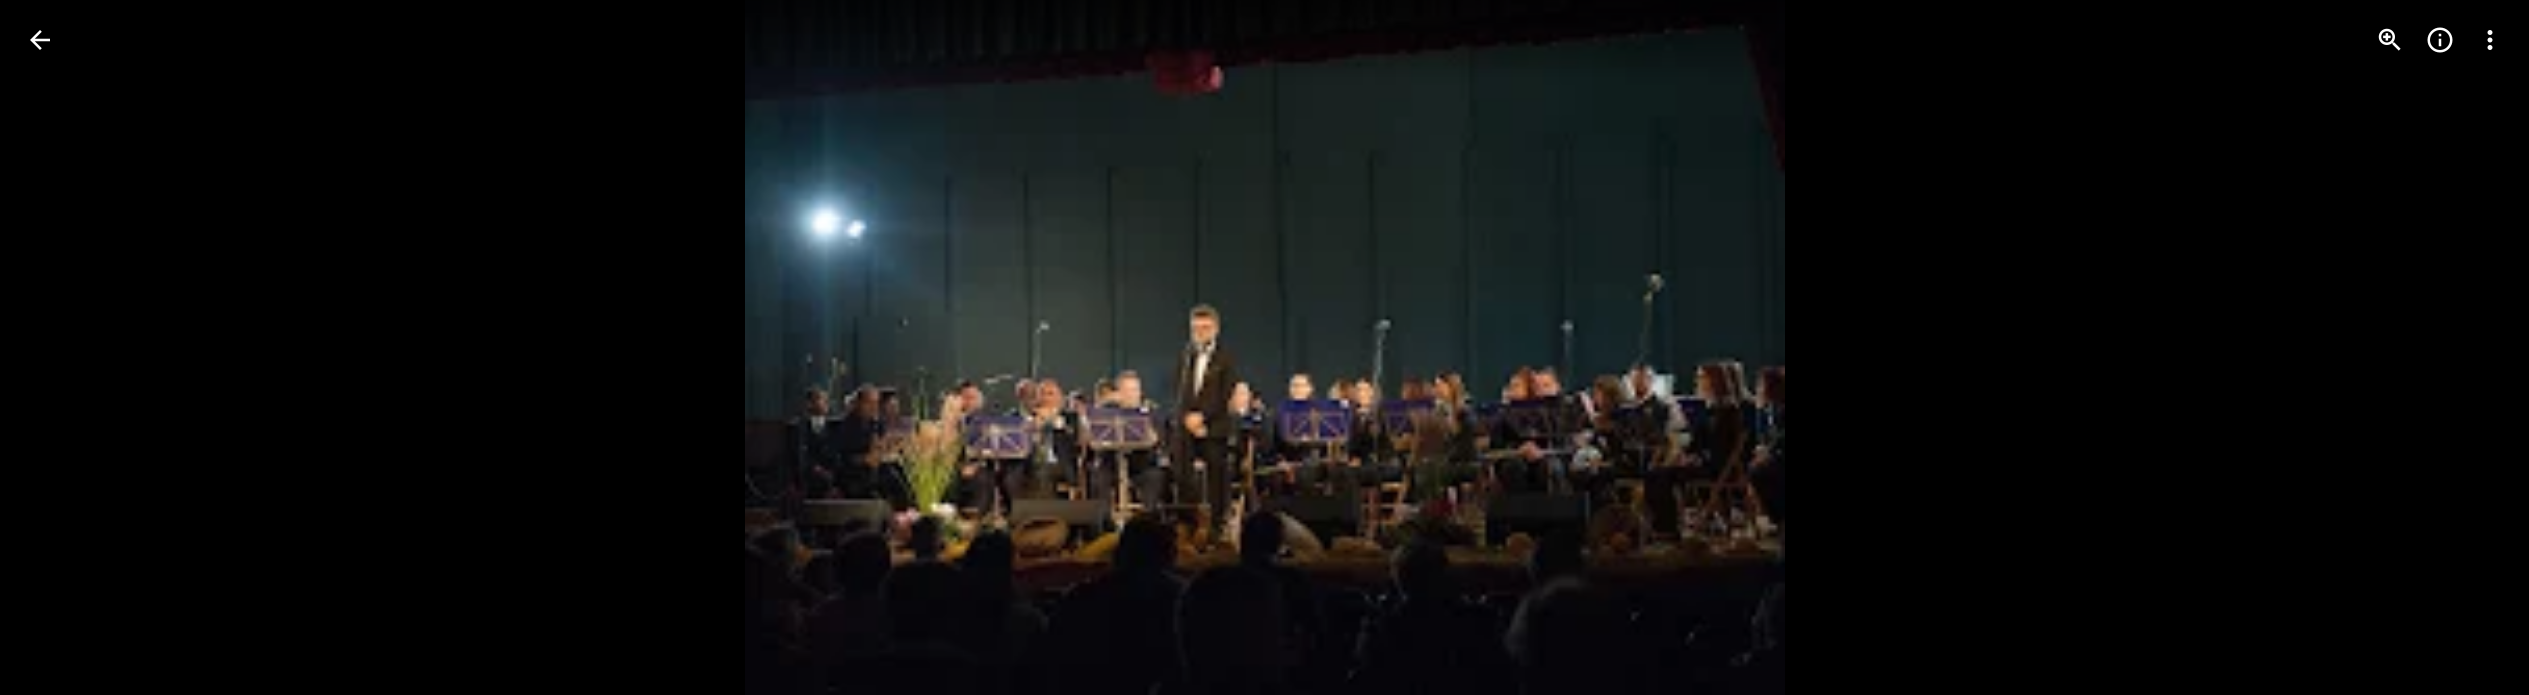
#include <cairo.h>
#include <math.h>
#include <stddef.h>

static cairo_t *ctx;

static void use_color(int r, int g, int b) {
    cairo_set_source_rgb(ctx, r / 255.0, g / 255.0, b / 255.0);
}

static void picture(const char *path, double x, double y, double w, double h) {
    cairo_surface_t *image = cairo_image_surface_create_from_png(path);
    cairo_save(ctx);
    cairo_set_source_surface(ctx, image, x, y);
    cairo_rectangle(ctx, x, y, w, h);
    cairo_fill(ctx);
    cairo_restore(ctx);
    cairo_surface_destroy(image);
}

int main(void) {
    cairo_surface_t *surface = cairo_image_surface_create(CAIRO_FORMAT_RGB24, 2529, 695);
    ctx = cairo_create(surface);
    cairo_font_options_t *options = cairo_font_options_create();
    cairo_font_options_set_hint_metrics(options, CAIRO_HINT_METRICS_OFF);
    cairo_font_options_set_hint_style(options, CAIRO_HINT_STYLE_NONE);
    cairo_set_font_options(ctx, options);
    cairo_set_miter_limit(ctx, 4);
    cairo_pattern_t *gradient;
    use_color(0, 0, 0);
    cairo_paint(ctx);
    picture("img5.png", 745, 0, 1040, 695);
    gradient = cairo_pattern_create_linear(1265, 0, 1265, 80);
    cairo_pattern_add_color_stop_rgba(gradient, 0, 0, 0, 0, 0.6);
    cairo_pattern_add_color_stop_rgba(gradient, 1, 0, 0, 0, 0);
    cairo_set_source(ctx, gradient);
    cairo_pattern_destroy(gradient);
    cairo_rectangle(ctx, 745, 0, 1040, 77);
    cairo_fill(ctx);
    picture("img1.png", 30, 30, 20, 20);
    picture("img2.png", 2378, 28, 23, 23);
    picture("img3.png", 2427, 27, 26, 26);
    picture("img4.png", 2487, 30, 6, 20);
    cairo_surface_write_to_png(surface, "result.png");
    cairo_font_options_destroy(options);
    cairo_destroy(ctx);
    cairo_surface_destroy(surface);
    return 0;
}
